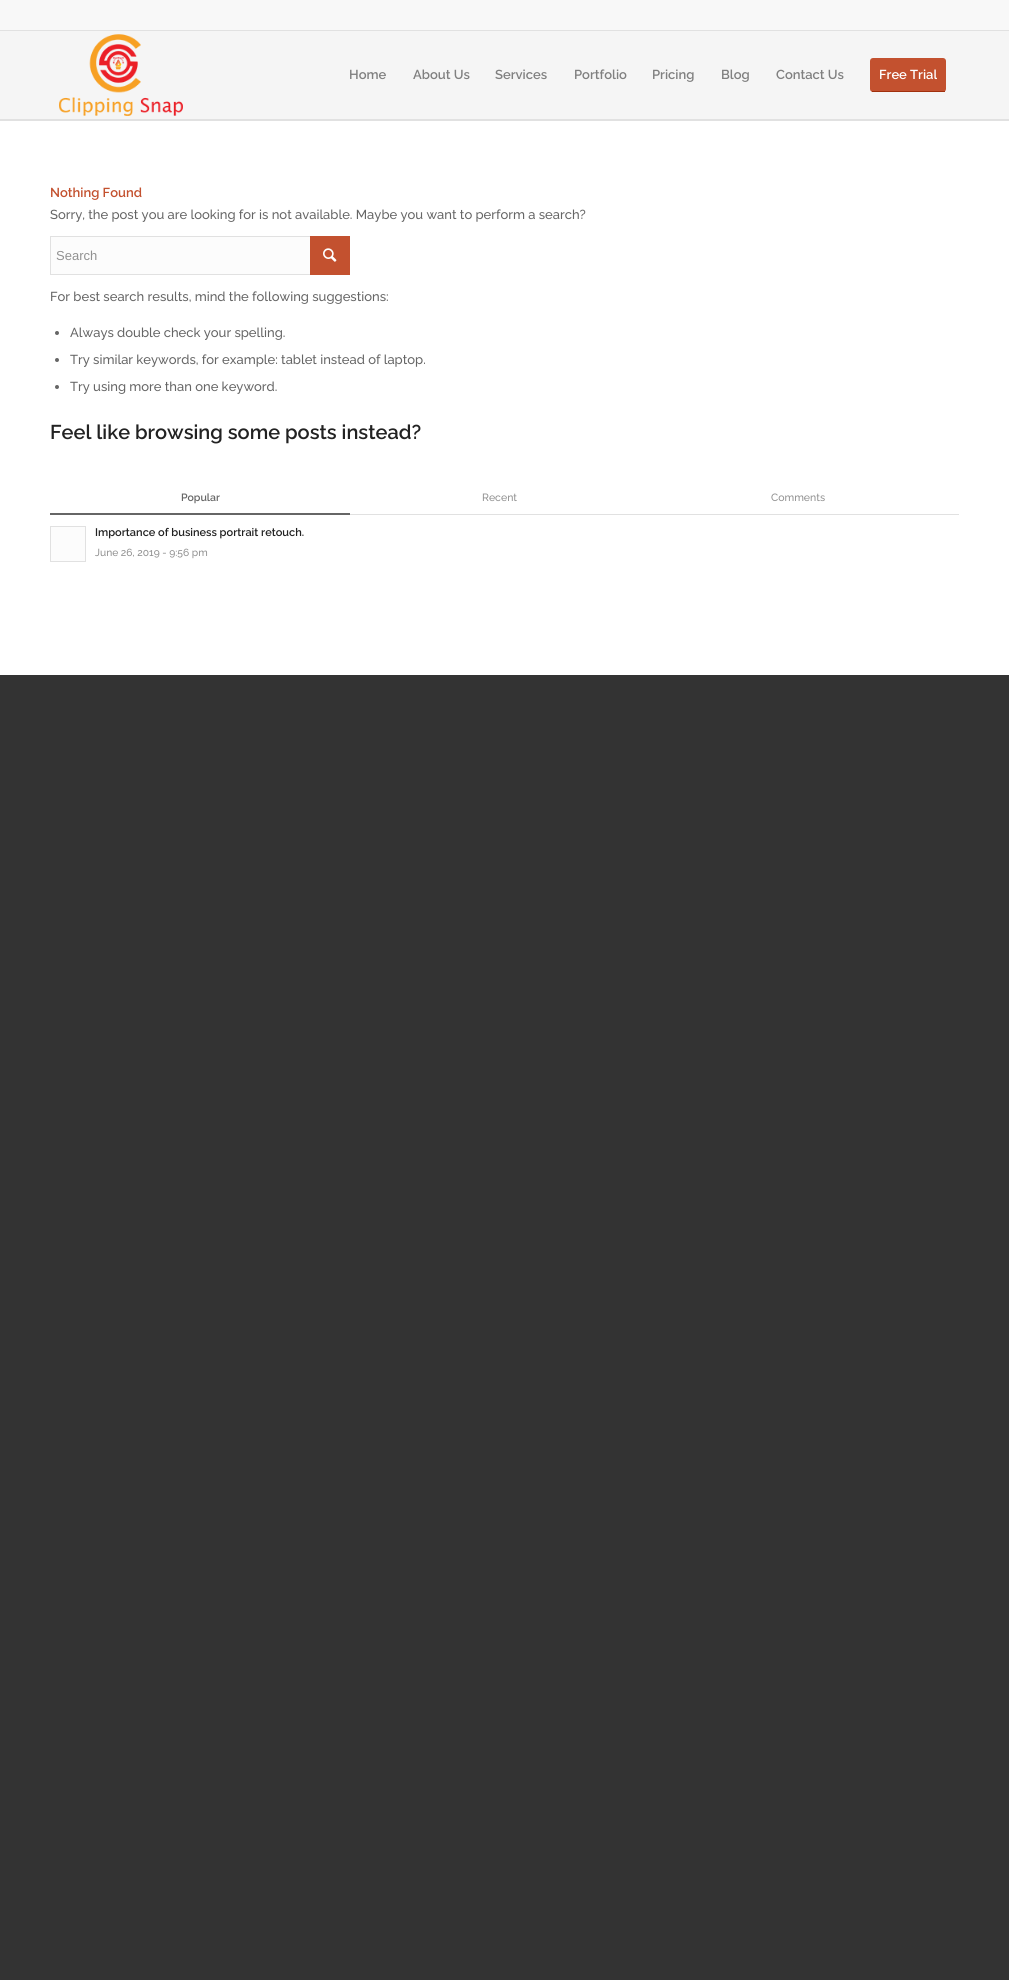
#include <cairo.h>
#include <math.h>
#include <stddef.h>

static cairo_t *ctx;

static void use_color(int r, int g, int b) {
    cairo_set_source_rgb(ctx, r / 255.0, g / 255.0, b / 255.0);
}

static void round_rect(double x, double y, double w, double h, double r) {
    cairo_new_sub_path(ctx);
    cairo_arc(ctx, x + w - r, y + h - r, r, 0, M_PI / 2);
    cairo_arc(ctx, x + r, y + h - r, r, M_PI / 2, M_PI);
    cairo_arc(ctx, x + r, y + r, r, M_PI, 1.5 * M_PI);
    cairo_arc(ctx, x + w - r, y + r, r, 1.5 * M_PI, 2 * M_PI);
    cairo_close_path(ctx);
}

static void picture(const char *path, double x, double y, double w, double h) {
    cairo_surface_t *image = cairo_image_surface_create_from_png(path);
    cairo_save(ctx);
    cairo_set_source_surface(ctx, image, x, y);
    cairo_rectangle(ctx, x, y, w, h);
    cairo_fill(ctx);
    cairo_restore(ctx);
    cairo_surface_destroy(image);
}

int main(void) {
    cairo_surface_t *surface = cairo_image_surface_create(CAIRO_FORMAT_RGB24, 1009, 1980);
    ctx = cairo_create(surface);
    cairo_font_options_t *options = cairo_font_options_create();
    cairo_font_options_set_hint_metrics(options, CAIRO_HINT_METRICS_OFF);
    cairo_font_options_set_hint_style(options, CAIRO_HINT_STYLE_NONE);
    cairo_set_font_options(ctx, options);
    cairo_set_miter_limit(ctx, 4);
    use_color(51, 51, 51);
    cairo_paint(ctx);
    use_color(248, 248, 248);
    cairo_rectangle(ctx, 0, 0, 1009, 30);
    cairo_fill(ctx);
    use_color(225, 225, 225);
    cairo_rectangle(ctx, 0, 30, 1009, 1);
    cairo_fill(ctx);
    use_color(245, 245, 245);
    cairo_rectangle(ctx, 0, 31, 1009, 88);
    cairo_fill(ctx);
    picture("img1.png", 59, 34, 124, 82);
    cairo_select_font_face(ctx, "Raleway SemiBold", CAIRO_FONT_SLANT_NORMAL, CAIRO_FONT_WEIGHT_NORMAL);
    cairo_set_font_size(ctx, 13);
    use_color(128, 128, 128);
    cairo_move_to(ctx, 349, 79);
    cairo_show_text(ctx, "Home");
    cairo_move_to(ctx, 413, 79);
    cairo_show_text(ctx, "About Us");
    cairo_move_to(ctx, 495, 79);
    cairo_show_text(ctx, "Services");
    cairo_move_to(ctx, 574, 79);
    cairo_show_text(ctx, "Portfolio");
    cairo_move_to(ctx, 652, 79);
    cairo_show_text(ctx, "Pricing");
    cairo_move_to(ctx, 721, 79);
    cairo_show_text(ctx, "Blog");
    cairo_move_to(ctx, 776, 79);
    cairo_show_text(ctx, "Contact Us");
    use_color(195, 81, 47);
    round_rect(870, 58, 76, 34, 3);
    cairo_fill(ctx);
    use_color(255, 255, 255);
    cairo_move_to(ctx, 879, 79);
    cairo_show_text(ctx, "Free Trial");
    use_color(161, 48, 13);
    cairo_rectangle(ctx, 872, 91, 73, 1);
    cairo_fill(ctx);
    use_color(255, 255, 255);
    cairo_rectangle(ctx, 0, 121, 1009, 554);
    cairo_fill(ctx);
    use_color(225, 225, 225);
    cairo_rectangle(ctx, 0, 119, 1009, 2);
    cairo_fill(ctx);
    use_color(195, 81, 47);
    cairo_move_to(ctx, 50, 197);
    cairo_show_text(ctx, "Nothing Found");
    cairo_select_font_face(ctx, "Raleway Medium", CAIRO_FONT_SLANT_NORMAL, CAIRO_FONT_WEIGHT_NORMAL);
    use_color(102, 102, 102);
    cairo_move_to(ctx, 50, 219);
    cairo_show_text(ctx, "Sorry, the post you are looking for is not available. Maybe you want to perform a search?");
    use_color(252, 252, 252);
    cairo_rectangle(ctx, 51, 237, 259, 37);
    cairo_fill(ctx);
    cairo_rectangle(ctx, 50.5, 236.5, 299, 38);
    use_color(225, 225, 225);
    cairo_set_line_width(ctx, 1);
    cairo_stroke(ctx);
    cairo_select_font_face(ctx, "Liberation Sans", CAIRO_FONT_SLANT_NORMAL, CAIRO_FONT_WEIGHT_NORMAL);
    use_color(145, 145, 145);
    cairo_move_to(ctx, 56, 260);
    cairo_show_text(ctx, "Search");
    use_color(195, 81, 47);
    cairo_rectangle(ctx, 310, 236, 40, 39);
    cairo_fill(ctx);
    picture("img2.png", 323, 248, 14, 14);
    cairo_select_font_face(ctx, "Raleway Medium", CAIRO_FONT_SLANT_NORMAL, CAIRO_FONT_WEIGHT_NORMAL);
    use_color(102, 102, 102);
    cairo_move_to(ctx, 50, 301);
    cairo_show_text(ctx, "For best search results, mind the following suggestions:");
    cairo_new_path(ctx);
    cairo_arc(ctx, 57, 333, 2, 0, 2 * M_PI);
    cairo_fill(ctx);
    cairo_move_to(ctx, 70, 337);
    cairo_show_text(ctx, "Always double check your spelling.");
    cairo_new_path(ctx);
    cairo_arc(ctx, 57, 360, 2, 0, 2 * M_PI);
    cairo_fill(ctx);
    cairo_move_to(ctx, 70, 364);
    cairo_show_text(ctx, "Try similar keywords, for example: tablet instead of laptop.");
    cairo_new_path(ctx);
    cairo_arc(ctx, 57, 387, 2, 0, 2 * M_PI);
    cairo_fill(ctx);
    cairo_move_to(ctx, 70, 391);
    cairo_show_text(ctx, "Try using more than one keyword.");
    cairo_select_font_face(ctx, "Raleway SemiBold", CAIRO_FONT_SLANT_NORMAL, CAIRO_FONT_WEIGHT_NORMAL);
    cairo_set_font_size(ctx, 20);
    use_color(34, 34, 34);
    cairo_move_to(ctx, 50, 439);
    cairo_show_text(ctx, "Feel like browsing some posts instead?");
    use_color(225, 225, 225);
    cairo_rectangle(ctx, 350, 514, 609, 1);
    cairo_fill(ctx);
    use_color(102, 102, 102);
    cairo_rectangle(ctx, 50, 513, 300, 2);
    cairo_fill(ctx);
    cairo_set_font_size(ctx, 10.5);
    cairo_move_to(ctx, 181, 501);
    cairo_show_text(ctx, "Popular");
    cairo_select_font_face(ctx, "Raleway Medium", CAIRO_FONT_SLANT_NORMAL, CAIRO_FONT_WEIGHT_NORMAL);
    use_color(145, 145, 145);
    cairo_move_to(ctx, 482, 501);
    cairo_show_text(ctx, "Recent");
    cairo_move_to(ctx, 771, 501);
    cairo_show_text(ctx, "Comments");
    use_color(252, 252, 252);
    cairo_rectangle(ctx, 50.5, 526.5, 35, 35);
    cairo_fill_preserve(ctx);
    use_color(225, 225, 225);
    cairo_stroke(ctx);
    cairo_select_font_face(ctx, "Raleway SemiBold", CAIRO_FONT_SLANT_NORMAL, CAIRO_FONT_WEIGHT_NORMAL);
    cairo_set_font_size(ctx, 11);
    use_color(34, 34, 34);
    cairo_move_to(ctx, 95, 536);
    cairo_show_text(ctx, "Importance of business portrait retouch.");
    cairo_select_font_face(ctx, "Raleway Medium", CAIRO_FONT_SLANT_NORMAL, CAIRO_FONT_WEIGHT_NORMAL);
    cairo_set_font_size(ctx, 10.25);
    use_color(145, 145, 145);
    cairo_move_to(ctx, 95, 556);
    cairo_show_text(ctx, "June 26, 2019 - 9:56 pm");
    cairo_surface_write_to_png(surface, "result.png");
    cairo_font_options_destroy(options);
    cairo_destroy(ctx);
    cairo_surface_destroy(surface);
    return 0;
}
